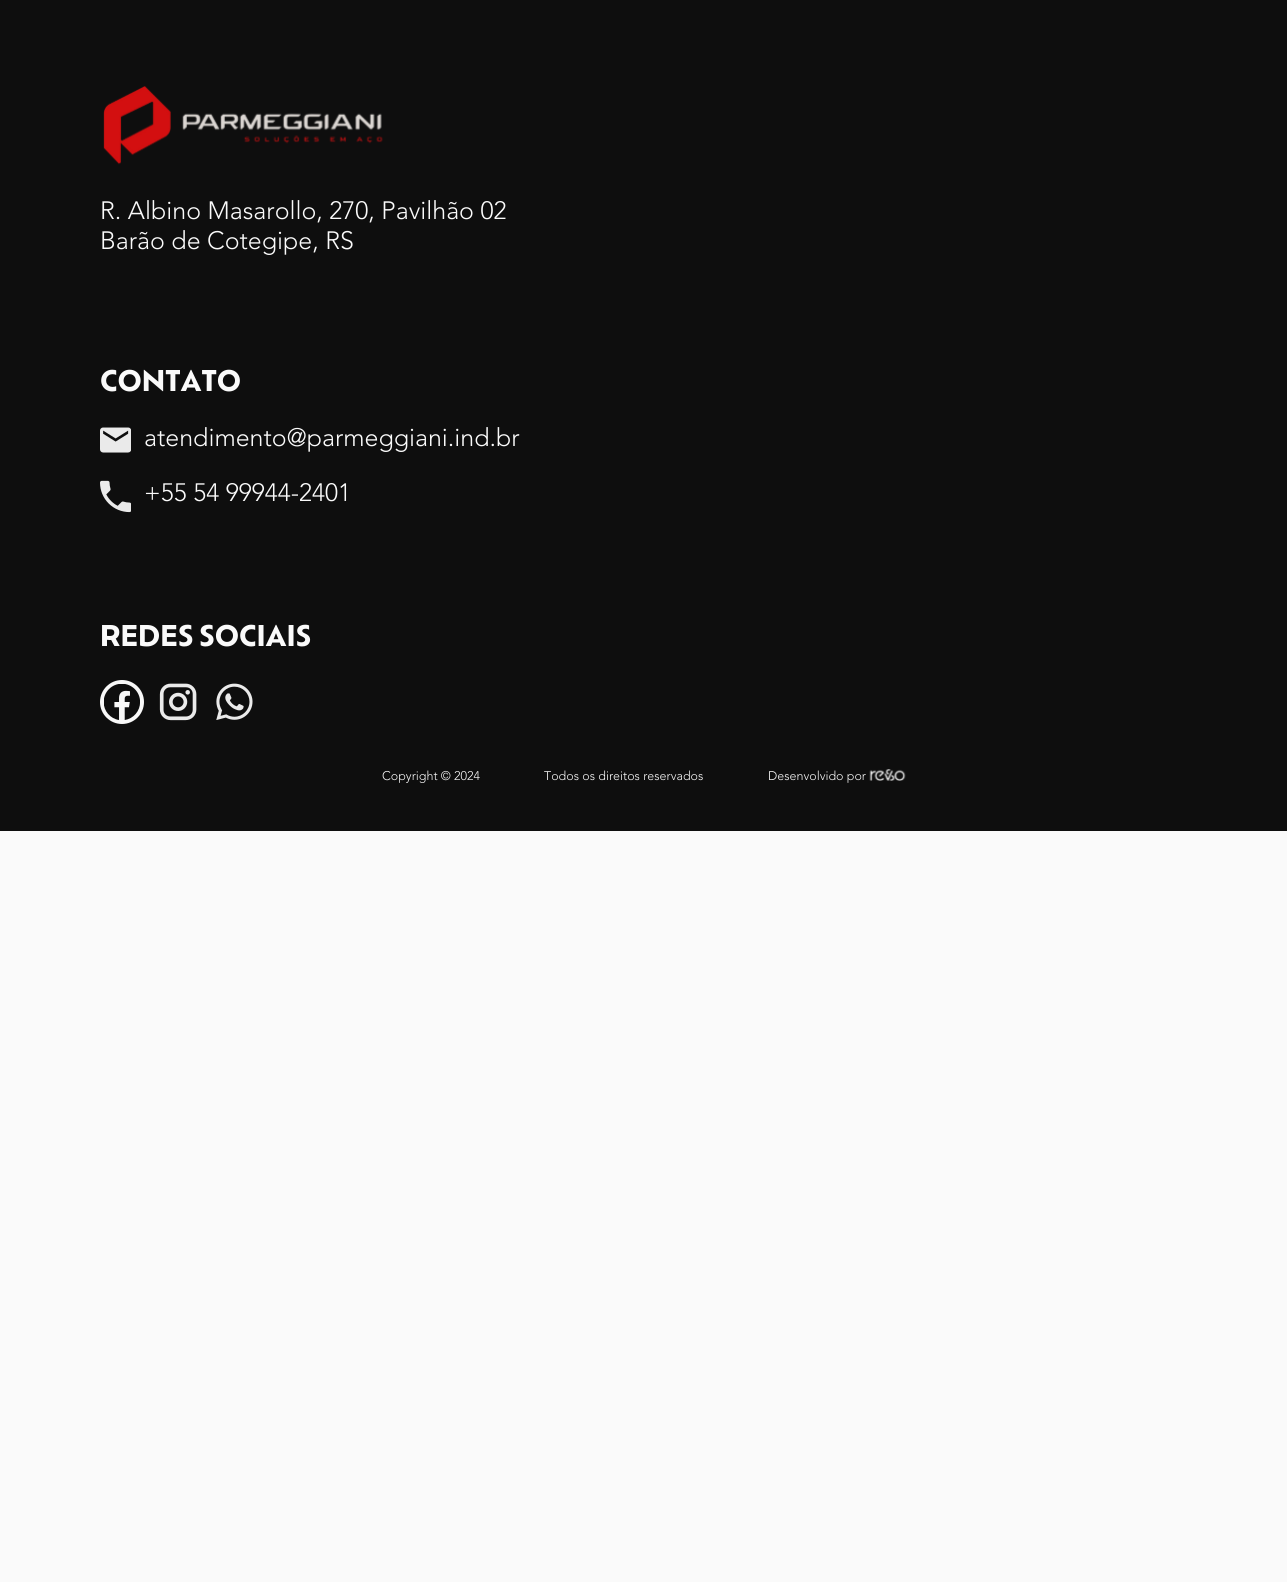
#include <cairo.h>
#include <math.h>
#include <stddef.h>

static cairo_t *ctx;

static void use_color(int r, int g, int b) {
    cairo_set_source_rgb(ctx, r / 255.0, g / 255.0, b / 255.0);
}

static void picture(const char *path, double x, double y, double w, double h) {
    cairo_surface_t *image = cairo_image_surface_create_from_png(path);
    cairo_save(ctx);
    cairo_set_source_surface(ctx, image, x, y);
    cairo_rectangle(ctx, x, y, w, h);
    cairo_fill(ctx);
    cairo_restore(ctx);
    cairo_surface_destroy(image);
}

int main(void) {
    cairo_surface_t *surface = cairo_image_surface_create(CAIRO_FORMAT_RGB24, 1287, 1582);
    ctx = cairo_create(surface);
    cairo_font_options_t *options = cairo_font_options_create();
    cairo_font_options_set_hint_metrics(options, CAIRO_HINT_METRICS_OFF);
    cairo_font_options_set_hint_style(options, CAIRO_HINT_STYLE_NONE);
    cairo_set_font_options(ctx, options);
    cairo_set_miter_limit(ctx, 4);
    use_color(250, 250, 250);
    cairo_paint(ctx);
    use_color(14, 14, 14);
    cairo_rectangle(ctx, 0, 0, 1287, 831);
    cairo_fill(ctx);
    picture("img1.png", 103, 86, 280, 79);
    cairo_select_font_face(ctx, "Avenir Light", CAIRO_FONT_SLANT_NORMAL, CAIRO_FONT_WEIGHT_NORMAL);
    cairo_set_font_size(ctx, 25);
    use_color(250, 250, 250);
    cairo_move_to(ctx, 100, 219);
    cairo_show_text(ctx, "R. Albino Masarollo, 270, Pavilhão 02");
    cairo_move_to(ctx, 100, 249);
    cairo_show_text(ctx, "Barão de Cotegipe, RS");
    cairo_select_font_face(ctx, "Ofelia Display", CAIRO_FONT_SLANT_NORMAL, CAIRO_FONT_WEIGHT_BOLD);
    cairo_set_font_size(ctx, 28);
    cairo_move_to(ctx, 100, 391);
    cairo_show_text(ctx, "CONTATO");
    picture("img2.png", 100, 427, 31, 26);
    cairo_select_font_face(ctx, "Avenir Light", CAIRO_FONT_SLANT_NORMAL, CAIRO_FONT_WEIGHT_NORMAL);
    cairo_set_font_size(ctx, 25);
    cairo_move_to(ctx, 144, 446);
    cairo_show_text(ctx, "atendimento@parmeggiani.ind.br");
    picture("img3.png", 100, 480, 31, 33);
    cairo_move_to(ctx, 144, 501);
    cairo_show_text(ctx, "+55 54 99944-2401");
    cairo_select_font_face(ctx, "Ofelia Display", CAIRO_FONT_SLANT_NORMAL, CAIRO_FONT_WEIGHT_BOLD);
    cairo_set_font_size(ctx, 28);
    cairo_move_to(ctx, 100, 646);
    cairo_show_text(ctx, "REDES SOCIAIS");
    picture("img4.png", 100, 680, 44, 44);
    picture("img5.png", 159, 683, 38, 38);
    picture("img6.png", 216, 683, 37, 37);
    cairo_select_font_face(ctx, "Avenir Light", CAIRO_FONT_SLANT_NORMAL, CAIRO_FONT_WEIGHT_NORMAL);
    cairo_set_font_size(ctx, 12.5);
    cairo_move_to(ctx, 382, 780);
    cairo_show_text(ctx, "Copyright © 2024");
    cairo_move_to(ctx, 544, 780);
    cairo_show_text(ctx, "Todos os direitos reservados");
    cairo_move_to(ctx, 768, 780);
    cairo_show_text(ctx, "Desenvolvido por");
    picture("img7.png", 869, 769, 37, 12);
    cairo_surface_write_to_png(surface, "result.png");
    cairo_font_options_destroy(options);
    cairo_destroy(ctx);
    cairo_surface_destroy(surface);
    return 0;
}
